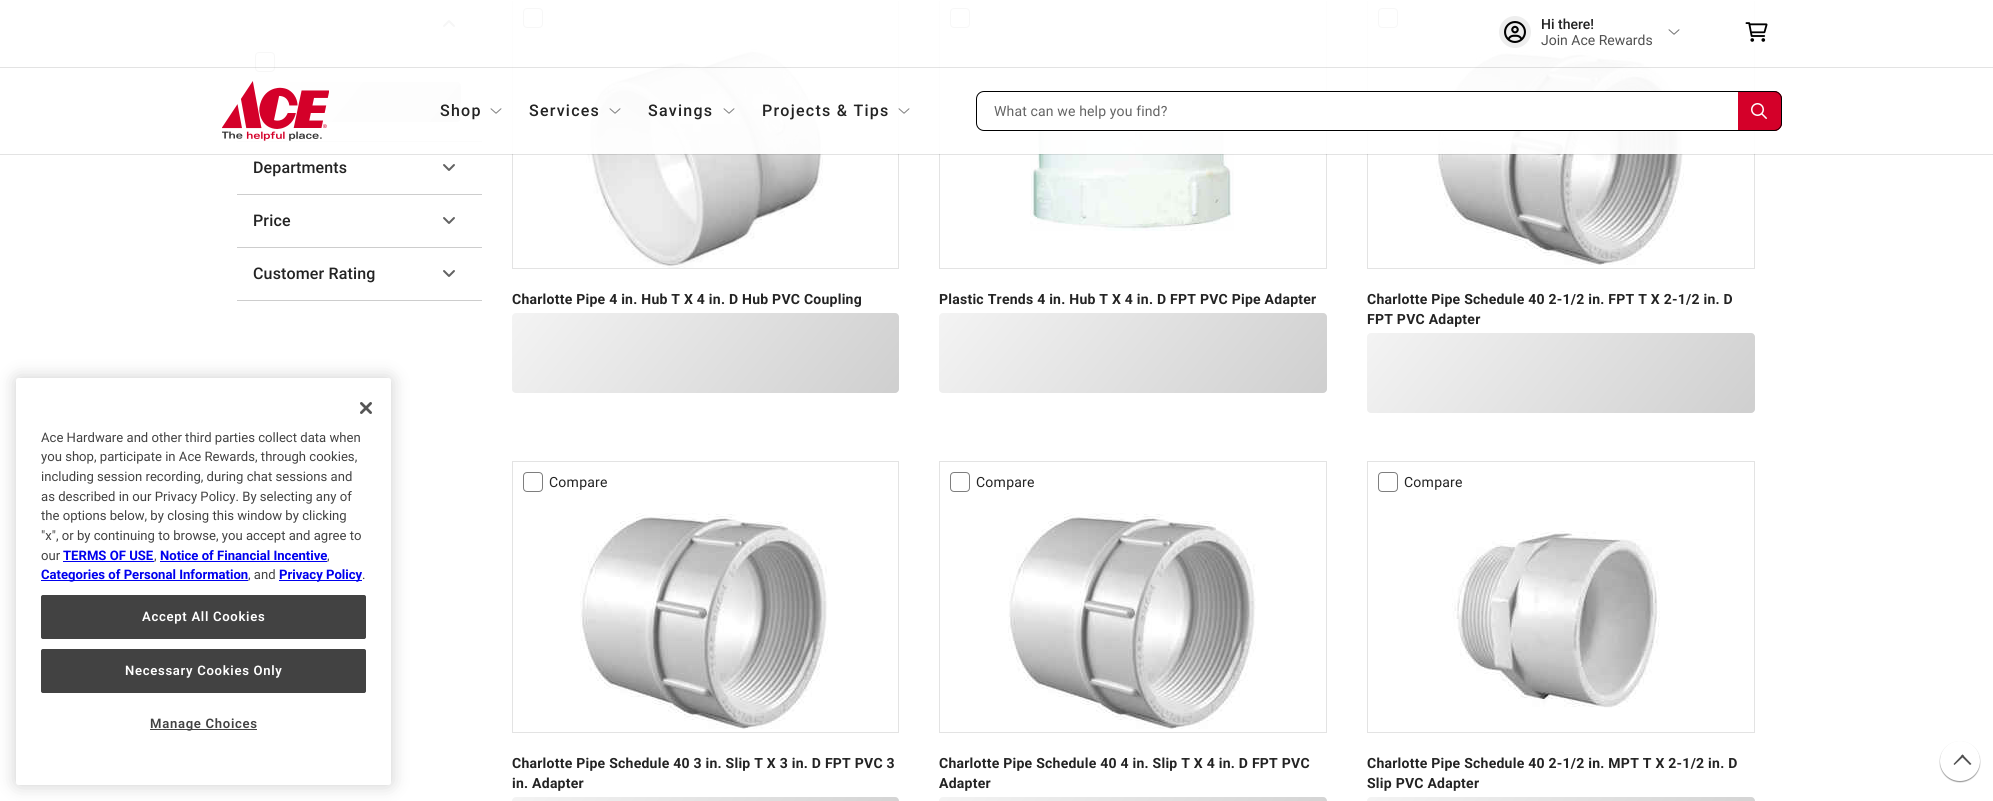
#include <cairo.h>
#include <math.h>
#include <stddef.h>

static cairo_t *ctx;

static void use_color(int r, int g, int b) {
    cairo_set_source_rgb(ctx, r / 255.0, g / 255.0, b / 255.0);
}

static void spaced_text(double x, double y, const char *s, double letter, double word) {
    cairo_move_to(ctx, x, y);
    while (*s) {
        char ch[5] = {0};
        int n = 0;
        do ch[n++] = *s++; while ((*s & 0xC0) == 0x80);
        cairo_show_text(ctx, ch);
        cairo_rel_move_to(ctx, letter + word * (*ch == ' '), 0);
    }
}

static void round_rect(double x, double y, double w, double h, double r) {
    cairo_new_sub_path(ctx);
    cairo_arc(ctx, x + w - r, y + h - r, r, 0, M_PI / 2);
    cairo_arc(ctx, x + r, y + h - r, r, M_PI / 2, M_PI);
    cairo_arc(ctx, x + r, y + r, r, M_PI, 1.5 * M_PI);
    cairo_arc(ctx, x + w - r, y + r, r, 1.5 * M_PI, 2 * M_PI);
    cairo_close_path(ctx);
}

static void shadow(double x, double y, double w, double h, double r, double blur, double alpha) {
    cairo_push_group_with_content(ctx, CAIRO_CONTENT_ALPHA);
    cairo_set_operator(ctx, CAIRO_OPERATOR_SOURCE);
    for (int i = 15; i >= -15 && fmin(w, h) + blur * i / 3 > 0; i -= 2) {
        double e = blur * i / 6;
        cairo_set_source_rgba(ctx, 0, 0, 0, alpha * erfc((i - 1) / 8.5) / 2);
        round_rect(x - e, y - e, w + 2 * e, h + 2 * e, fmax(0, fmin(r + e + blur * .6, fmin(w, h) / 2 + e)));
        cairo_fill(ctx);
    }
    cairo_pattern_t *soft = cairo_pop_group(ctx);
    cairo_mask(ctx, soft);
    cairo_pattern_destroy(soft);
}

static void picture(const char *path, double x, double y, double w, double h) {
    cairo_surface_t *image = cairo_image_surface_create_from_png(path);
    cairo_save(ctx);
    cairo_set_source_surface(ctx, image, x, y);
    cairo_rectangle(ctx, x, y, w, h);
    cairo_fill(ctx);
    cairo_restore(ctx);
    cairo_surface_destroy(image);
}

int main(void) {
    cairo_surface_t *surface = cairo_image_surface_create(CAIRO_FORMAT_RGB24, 1993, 801);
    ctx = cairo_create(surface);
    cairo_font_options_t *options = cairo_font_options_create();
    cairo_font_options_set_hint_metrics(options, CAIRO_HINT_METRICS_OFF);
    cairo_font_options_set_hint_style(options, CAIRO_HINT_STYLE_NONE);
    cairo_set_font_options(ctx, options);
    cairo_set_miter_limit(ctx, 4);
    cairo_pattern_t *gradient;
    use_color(255, 255, 255);
    cairo_paint(ctx);
    use_color(0, 0, 0);
    shadow(16, 378, 375, 407, 2.5, 9, 0.2);
    use_color(255, 255, 255);
    round_rect(16, 378, 375, 407, 2.5);
    cairo_fill(ctx);
    picture("img1.png", 360, 402, 12, 12);
    cairo_select_font_face(ctx, "Roboto", CAIRO_FONT_SLANT_NORMAL, CAIRO_FONT_WEIGHT_NORMAL);
    cairo_set_font_size(ctx, 13.1);
    use_color(66, 66, 66);
    cairo_move_to(ctx, 41, 442);
    cairo_show_text(ctx, "Ace Hardware and other third parties collect data when");
    cairo_move_to(ctx, 41, 461);
    cairo_show_text(ctx, "you shop, participate in Ace Rewards, through cookies,");
    cairo_move_to(ctx, 41, 481);
    cairo_show_text(ctx, "including session recording, during chat sessions and");
    cairo_move_to(ctx, 41, 501);
    cairo_show_text(ctx, "as described in our Privacy Policy. By selecting any of");
    cairo_move_to(ctx, 41, 520);
    cairo_show_text(ctx, "the options below, by closing this window by clicking");
    cairo_move_to(ctx, 41, 540);
    cairo_show_text(ctx, "\"x\", or by continuing to browse, you accept and agree to");
    cairo_move_to(ctx, 41, 560);
    cairo_show_text(ctx, "our");
    cairo_select_font_face(ctx, "Roboto", CAIRO_FONT_SLANT_NORMAL, CAIRO_FONT_WEIGHT_BOLD);
    use_color(0, 0, 238);
    cairo_move_to(ctx, 63, 560);
    cairo_show_text(ctx, "TERMS OF USE");
    cairo_rectangle(ctx, 63, 561, 91, 1);
    cairo_fill(ctx);
    cairo_select_font_face(ctx, "Roboto", CAIRO_FONT_SLANT_NORMAL, CAIRO_FONT_WEIGHT_NORMAL);
    use_color(66, 66, 66);
    cairo_move_to(ctx, 154, 560);
    cairo_show_text(ctx, ",");
    cairo_select_font_face(ctx, "Roboto", CAIRO_FONT_SLANT_NORMAL, CAIRO_FONT_WEIGHT_BOLD);
    use_color(0, 0, 238);
    cairo_move_to(ctx, 160, 560);
    cairo_show_text(ctx, "Notice of Financial Incentive");
    cairo_rectangle(ctx, 160, 561, 167, 1);
    cairo_fill(ctx);
    cairo_select_font_face(ctx, "Roboto", CAIRO_FONT_SLANT_NORMAL, CAIRO_FONT_WEIGHT_NORMAL);
    use_color(66, 66, 66);
    cairo_move_to(ctx, 327, 560);
    cairo_show_text(ctx, ",");
    use_color(0, 0, 238);
    cairo_rectangle(ctx, 41, 580, 207, 1);
    cairo_fill(ctx);
    cairo_select_font_face(ctx, "Roboto", CAIRO_FONT_SLANT_NORMAL, CAIRO_FONT_WEIGHT_BOLD);
    cairo_move_to(ctx, 41, 579);
    cairo_show_text(ctx, "Categories of Personal Information");
    cairo_select_font_face(ctx, "Roboto", CAIRO_FONT_SLANT_NORMAL, CAIRO_FONT_WEIGHT_NORMAL);
    use_color(66, 66, 66);
    cairo_move_to(ctx, 248, 579);
    cairo_show_text(ctx, ", and");
    use_color(0, 0, 238);
    cairo_rectangle(ctx, 279, 580, 83, 1);
    cairo_fill(ctx);
    cairo_select_font_face(ctx, "Roboto", CAIRO_FONT_SLANT_NORMAL, CAIRO_FONT_WEIGHT_BOLD);
    cairo_move_to(ctx, 279, 579);
    cairo_show_text(ctx, "Privacy Policy");
    cairo_select_font_face(ctx, "Roboto", CAIRO_FONT_SLANT_NORMAL, CAIRO_FONT_WEIGHT_NORMAL);
    use_color(66, 66, 66);
    cairo_move_to(ctx, 362, 579);
    cairo_show_text(ctx, ".");
    round_rect(41.5, 595.5, 324, 43, 1.5);
    cairo_fill_preserve(ctx);
    cairo_set_line_width(ctx, 1);
    cairo_stroke(ctx);
    cairo_select_font_face(ctx, "Roboto SemiBold", CAIRO_FONT_SLANT_NORMAL, CAIRO_FONT_WEIGHT_NORMAL);
    use_color(255, 255, 255);
    spaced_text(142, 621, "Accept All Cookies", 0.7, 0);
    use_color(66, 66, 66);
    round_rect(41.5, 649.5, 324, 43, 1.5);
    cairo_fill_preserve(ctx);
    cairo_stroke(ctx);
    use_color(255, 255, 255);
    spaced_text(125, 675, "Necessary Cookies Only", 0.7, 0);
    use_color(66, 66, 66);
    cairo_rectangle(ctx, 150, 729, 107, 1);
    cairo_fill(ctx);
    spaced_text(150, 728, "Manage Choices", 0.7, 0);
    cairo_rectangle(ctx, 512.5, -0.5, 386, 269);
    use_color(227, 227, 227);
    cairo_stroke(ctx);
    picture("img13.png", 586, 48, 237, 220);
    cairo_rectangle(ctx, 939.5, -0.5, 387, 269);
    cairo_stroke(ctx);
    picture("img14.png", 1030, 90, 204, 141);
    cairo_rectangle(ctx, 1367.5, -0.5, 387, 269);
    cairo_stroke(ctx);
    picture("img15.png", 1436, 49, 248, 216);
    cairo_set_source_rgba(ctx, 0.071, 0.071, 0.071, 0.12);
    cairo_rectangle(ctx, 0, 154, 1993, 1);
    cairo_fill(ctx);
    picture("img11.png", 443, 20, 12, 7);
    use_color(205, 205, 205);
    cairo_rectangle(ctx, 237, 141, 245, 1);
    cairo_fill(ctx);
    round_rect(255.5, 52.5, 19, 19, 3.5);
    use_color(126, 126, 126);
    cairo_stroke(ctx);
    gradient = cairo_pattern_create_linear(308, 51, 436, 153);
    cairo_pattern_add_color_stop_rgba(gradient, 0.01, 0.953, 0.953, 0.953, 1);
    cairo_pattern_add_color_stop_rgba(gradient, 1, 0.812, 0.812, 0.812, 1);
    cairo_set_source(ctx, gradient);
    cairo_pattern_destroy(gradient);
    round_rect(283, 82, 178, 40, 4);
    cairo_fill(ctx);
    round_rect(523.5, 8.5, 19, 19, 3.5);
    use_color(126, 126, 126);
    cairo_stroke(ctx);
    round_rect(950.5, 8.5, 19, 19, 3.5);
    cairo_stroke(ctx);
    round_rect(1378.5, 8.5, 19, 19, 3.5);
    cairo_stroke(ctx);
    cairo_set_source_rgba(ctx, 1, 1, 1, 0.94);
    cairo_rectangle(ctx, 237, 1, 1518, 153);
    cairo_fill(ctx);
    use_color(255, 255, 255);
    cairo_rectangle(ctx, 512, 0, 1243, 1);
    cairo_fill(ctx);
    use_color(238, 238, 238);
    cairo_arc(ctx, 1515, 32, 16, 0, 2 * M_PI);
    cairo_fill(ctx);
    picture("img2.png", 1504, 21, 22, 22);
    cairo_select_font_face(ctx, "Roboto Medium", CAIRO_FONT_SLANT_NORMAL, CAIRO_FONT_WEIGHT_NORMAL);
    cairo_set_font_size(ctx, 14);
    use_color(35, 35, 35);
    cairo_move_to(ctx, 1541, 29);
    cairo_show_text(ctx, "Hi there!");
    cairo_select_font_face(ctx, "Roboto", CAIRO_FONT_SLANT_NORMAL, CAIRO_FONT_WEIGHT_NORMAL);
    use_color(80, 80, 80);
    cairo_move_to(ctx, 1541, 45);
    cairo_show_text(ctx, "Join Ace Rewards");
    picture("img3.png", 1668, 29, 12, 6);
    picture("img4.png", 1745, 22, 23, 20);
    cairo_set_source_rgba(ctx, 0.071, 0.071, 0.071, 0.12);
    cairo_rectangle(ctx, 0, 67, 1993, 1);
    cairo_fill(ctx);
    picture("img5.png", 222, 81, 107, 60);
    cairo_select_font_face(ctx, "Roboto Medium", CAIRO_FONT_SLANT_NORMAL, CAIRO_FONT_WEIGHT_NORMAL);
    cairo_set_font_size(ctx, 16);
    use_color(35, 35, 35);
    spaced_text(440, 116, "Shop", 1.25, 0);
    picture("img6.png", 490, 108, 12, 6);
    spaced_text(529, 116, "Services", 1.25, 0);
    picture("img7.png", 609, 108, 12, 6);
    spaced_text(648, 116, "Savings", 1.25, 0);
    picture("img8.png", 723, 108, 12, 6);
    spaced_text(762, 116, "Projects & Tips", 1.25, 0);
    picture("img9.png", 898, 108, 12, 6);
    use_color(255, 255, 255);
    round_rect(976.5, 91.5, 805, 39, 7.5);
    cairo_fill_preserve(ctx);
    use_color(0, 0, 0);
    cairo_stroke(ctx);
    cairo_select_font_face(ctx, "Roboto", CAIRO_FONT_SLANT_NORMAL, CAIRO_FONT_WEIGHT_NORMAL);
    cairo_set_font_size(ctx, 14);
    use_color(100, 100, 100);
    spaced_text(994, 116, "What can we help you find?", 0.15, 0);
    use_color(212, 0, 41);
    cairo_new_path(ctx);
    cairo_move_to(ctx, 1738, 91);
    cairo_line_to(ctx, 1774, 91);
    cairo_curve_to(ctx, 1778.5, 91, 1782, 94.5, 1782, 99);
    cairo_line_to(ctx, 1782, 123);
    cairo_curve_to(ctx, 1782, 127.5, 1778.5, 131, 1774, 131);
    cairo_line_to(ctx, 1738, 131);
    cairo_close_path(ctx);
    cairo_fill(ctx);
    use_color(0, 0, 0);
    cairo_set_fill_rule(ctx, CAIRO_FILL_RULE_EVEN_ODD);
    cairo_new_path(ctx);
    cairo_move_to(ctx, 1738, 91);
    cairo_line_to(ctx, 1774, 91);
    cairo_curve_to(ctx, 1778, 91, 1782, 95, 1782, 99);
    cairo_line_to(ctx, 1782, 123);
    cairo_curve_to(ctx, 1782, 127, 1778, 131, 1774, 131);
    cairo_line_to(ctx, 1738, 131);
    cairo_close_path(ctx);
    cairo_move_to(ctx, 1738, 92);
    cairo_line_to(ctx, 1774, 92);
    cairo_curve_to(ctx, 1778, 92, 1781, 95, 1781, 99);
    cairo_line_to(ctx, 1781, 123);
    cairo_curve_to(ctx, 1781, 127, 1778, 130, 1774, 130);
    cairo_line_to(ctx, 1738, 130);
    cairo_close_path(ctx);
    cairo_fill(ctx);
    picture("img10.png", 1751, 103, 16, 16);
    use_color(205, 205, 205);
    cairo_rectangle(ctx, 237, 194, 245, 1);
    cairo_fill(ctx);
    cairo_select_font_face(ctx, "Roboto Medium", CAIRO_FONT_SLANT_NORMAL, CAIRO_FONT_WEIGHT_NORMAL);
    cairo_set_font_size(ctx, 16);
    use_color(35, 35, 35);
    spaced_text(253, 173, "Departments", 0.15, 0);
    picture("img12.png", 443, 164, 12, 7);
    use_color(205, 205, 205);
    cairo_rectangle(ctx, 237, 247, 245, 1);
    cairo_fill(ctx);
    use_color(35, 35, 35);
    spaced_text(253, 226, "Price", 0.15, 0);
    picture("img12.png", 443, 217, 12, 7);
    use_color(205, 205, 205);
    cairo_rectangle(ctx, 237, 300, 245, 1);
    cairo_fill(ctx);
    use_color(35, 35, 35);
    spaced_text(253, 279, "Customer Rating", 0.15, 0);
    picture("img12.png", 443, 270, 12, 7);
    cairo_select_font_face(ctx, "Roboto", CAIRO_FONT_SLANT_NORMAL, CAIRO_FONT_WEIGHT_BOLD);
    cairo_set_font_size(ctx, 14);
    spaced_text(512, 304, "Charlotte Pipe 4 in. Hub T X 4 in. D Hub PVC Coupling", 0.25, 0);
    gradient = cairo_pattern_create_linear(568, 243, 844, 463);
    cairo_pattern_add_color_stop_rgba(gradient, 0.01, 0.953, 0.953, 0.953, 1);
    cairo_pattern_add_color_stop_rgba(gradient, 1, 0.812, 0.812, 0.812, 1);
    cairo_set_source(ctx, gradient);
    cairo_pattern_destroy(gradient);
    round_rect(512, 313, 387, 80, 4);
    cairo_fill(ctx);
    use_color(35, 35, 35);
    spaced_text(939, 304, "Plastic Trends 4 in. Hub T X 4 in. D FPT PVC Pipe Adapter", 0.25, 0);
    gradient = cairo_pattern_create_linear(995, 243, 1272, 464);
    cairo_pattern_add_color_stop_rgba(gradient, 0.01, 0.953, 0.953, 0.953, 1);
    cairo_pattern_add_color_stop_rgba(gradient, 1, 0.812, 0.812, 0.812, 1);
    cairo_set_source(ctx, gradient);
    cairo_pattern_destroy(gradient);
    round_rect(939, 313, 388, 80, 4);
    cairo_fill(ctx);
    use_color(35, 35, 35);
    spaced_text(1367, 304, "Charlotte Pipe Schedule 40 2-1/2 in. FPT T X 2-1/2 in. D", 0.25, 0);
    spaced_text(1367, 324, "FPT PVC Adapter", 0.25, 0);
    gradient = cairo_pattern_create_linear(1423, 263, 1700, 484);
    cairo_pattern_add_color_stop_rgba(gradient, 0.01, 0.953, 0.953, 0.953, 1);
    cairo_pattern_add_color_stop_rgba(gradient, 1, 0.812, 0.812, 0.812, 1);
    cairo_set_source(ctx, gradient);
    cairo_pattern_destroy(gradient);
    round_rect(1367, 333, 388, 80, 4);
    cairo_fill(ctx);
    cairo_rectangle(ctx, 512.5, 461.5, 386, 271);
    use_color(227, 227, 227);
    cairo_stroke(ctx);
    round_rect(523.5, 472.5, 19, 19, 3.5);
    use_color(126, 126, 126);
    cairo_stroke(ctx);
    cairo_select_font_face(ctx, "Roboto", CAIRO_FONT_SLANT_NORMAL, CAIRO_FONT_WEIGHT_NORMAL);
    use_color(35, 35, 35);
    spaced_text(549, 487, "Compare", 0.25, 0);
    picture("img16.png", 580, 513, 248, 216);
    cairo_select_font_face(ctx, "Roboto", CAIRO_FONT_SLANT_NORMAL, CAIRO_FONT_WEIGHT_BOLD);
    spaced_text(512, 768, "Charlotte Pipe Schedule 40 3 in. Slip T X 3 in. D FPT PVC 3", 0.25, 0);
    spaced_text(512, 788, "in. Adapter", 0.25, 0);
    gradient = cairo_pattern_create_linear(568, 727, 844, 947);
    cairo_pattern_add_color_stop_rgba(gradient, 0.01, 0.953, 0.953, 0.953, 1);
    cairo_pattern_add_color_stop_rgba(gradient, 1, 0.812, 0.812, 0.812, 1);
    cairo_set_source(ctx, gradient);
    cairo_pattern_destroy(gradient);
    round_rect(512, 797, 387, 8, 4);
    cairo_fill(ctx);
    cairo_rectangle(ctx, 939.5, 461.5, 387, 271);
    use_color(227, 227, 227);
    cairo_stroke(ctx);
    round_rect(950.5, 472.5, 19, 19, 3.5);
    use_color(126, 126, 126);
    cairo_stroke(ctx);
    cairo_select_font_face(ctx, "Roboto", CAIRO_FONT_SLANT_NORMAL, CAIRO_FONT_WEIGHT_NORMAL);
    use_color(35, 35, 35);
    spaced_text(976, 487, "Compare", 0.25, 0);
    picture("img17.png", 1008, 513, 248, 216);
    cairo_select_font_face(ctx, "Roboto", CAIRO_FONT_SLANT_NORMAL, CAIRO_FONT_WEIGHT_BOLD);
    spaced_text(939, 768, "Charlotte Pipe Schedule 40 4 in. Slip T X 4 in. D FPT PVC", 0.25, 0);
    spaced_text(939, 788, "Adapter", 0.25, 0);
    gradient = cairo_pattern_create_linear(995, 727, 1272, 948);
    cairo_pattern_add_color_stop_rgba(gradient, 0.01, 0.953, 0.953, 0.953, 1);
    cairo_pattern_add_color_stop_rgba(gradient, 1, 0.812, 0.812, 0.812, 1);
    cairo_set_source(ctx, gradient);
    cairo_pattern_destroy(gradient);
    round_rect(939, 797, 388, 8, 4);
    cairo_fill(ctx);
    cairo_rectangle(ctx, 1367.5, 461.5, 387, 271);
    use_color(227, 227, 227);
    cairo_stroke(ctx);
    round_rect(1378.5, 472.5, 19, 19, 3.5);
    use_color(126, 126, 126);
    cairo_stroke(ctx);
    cairo_select_font_face(ctx, "Roboto", CAIRO_FONT_SLANT_NORMAL, CAIRO_FONT_WEIGHT_NORMAL);
    use_color(35, 35, 35);
    spaced_text(1404, 487, "Compare", 0.25, 0);
    picture("img18.png", 1452, 531, 208, 177);
    cairo_select_font_face(ctx, "Roboto", CAIRO_FONT_SLANT_NORMAL, CAIRO_FONT_WEIGHT_BOLD);
    spaced_text(1367, 768, "Charlotte Pipe Schedule 40 2-1/2 in. MPT T X 2-1/2 in. D", 0.25, 0);
    spaced_text(1367, 788, "Slip PVC Adapter", 0.25, 0);
    gradient = cairo_pattern_create_linear(1423, 727, 1700, 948);
    cairo_pattern_add_color_stop_rgba(gradient, 0.01, 0.953, 0.953, 0.953, 1);
    cairo_pattern_add_color_stop_rgba(gradient, 1, 0.812, 0.812, 0.812, 1);
    cairo_set_source(ctx, gradient);
    cairo_pattern_destroy(gradient);
    round_rect(1367, 797, 388, 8, 4);
    cairo_fill(ctx);
    use_color(145, 145, 145);
    shadow(1940, 742, 40, 40, 20, 0.5, 1);
    use_color(255, 255, 255);
    cairo_arc(ctx, 1960, 761, 20, 0, 2 * M_PI);
    cairo_fill(ctx);
    use_color(81, 81, 81);
    cairo_set_fill_rule(ctx, CAIRO_FILL_RULE_WINDING);
    cairo_new_path(ctx);
    cairo_move_to(ctx, 1953.5, 764);
    cairo_line_to(ctx, 1962.5, 754.5);
    cairo_line_to(ctx, 1964, 756);
    cairo_line_to(ctx, 1954.5, 765);
    cairo_close_path(ctx);
    cairo_fill(ctx);
    cairo_new_path(ctx);
    cairo_move_to(ctx, 1961, 756);
    cairo_line_to(ctx, 1962.5, 754.5);
    cairo_line_to(ctx, 1971.5, 764);
    cairo_line_to(ctx, 1970, 765);
    cairo_close_path(ctx);
    cairo_fill(ctx);
    cairo_surface_write_to_png(surface, "result.png");
    cairo_font_options_destroy(options);
    cairo_destroy(ctx);
    cairo_surface_destroy(surface);
    return 0;
}
